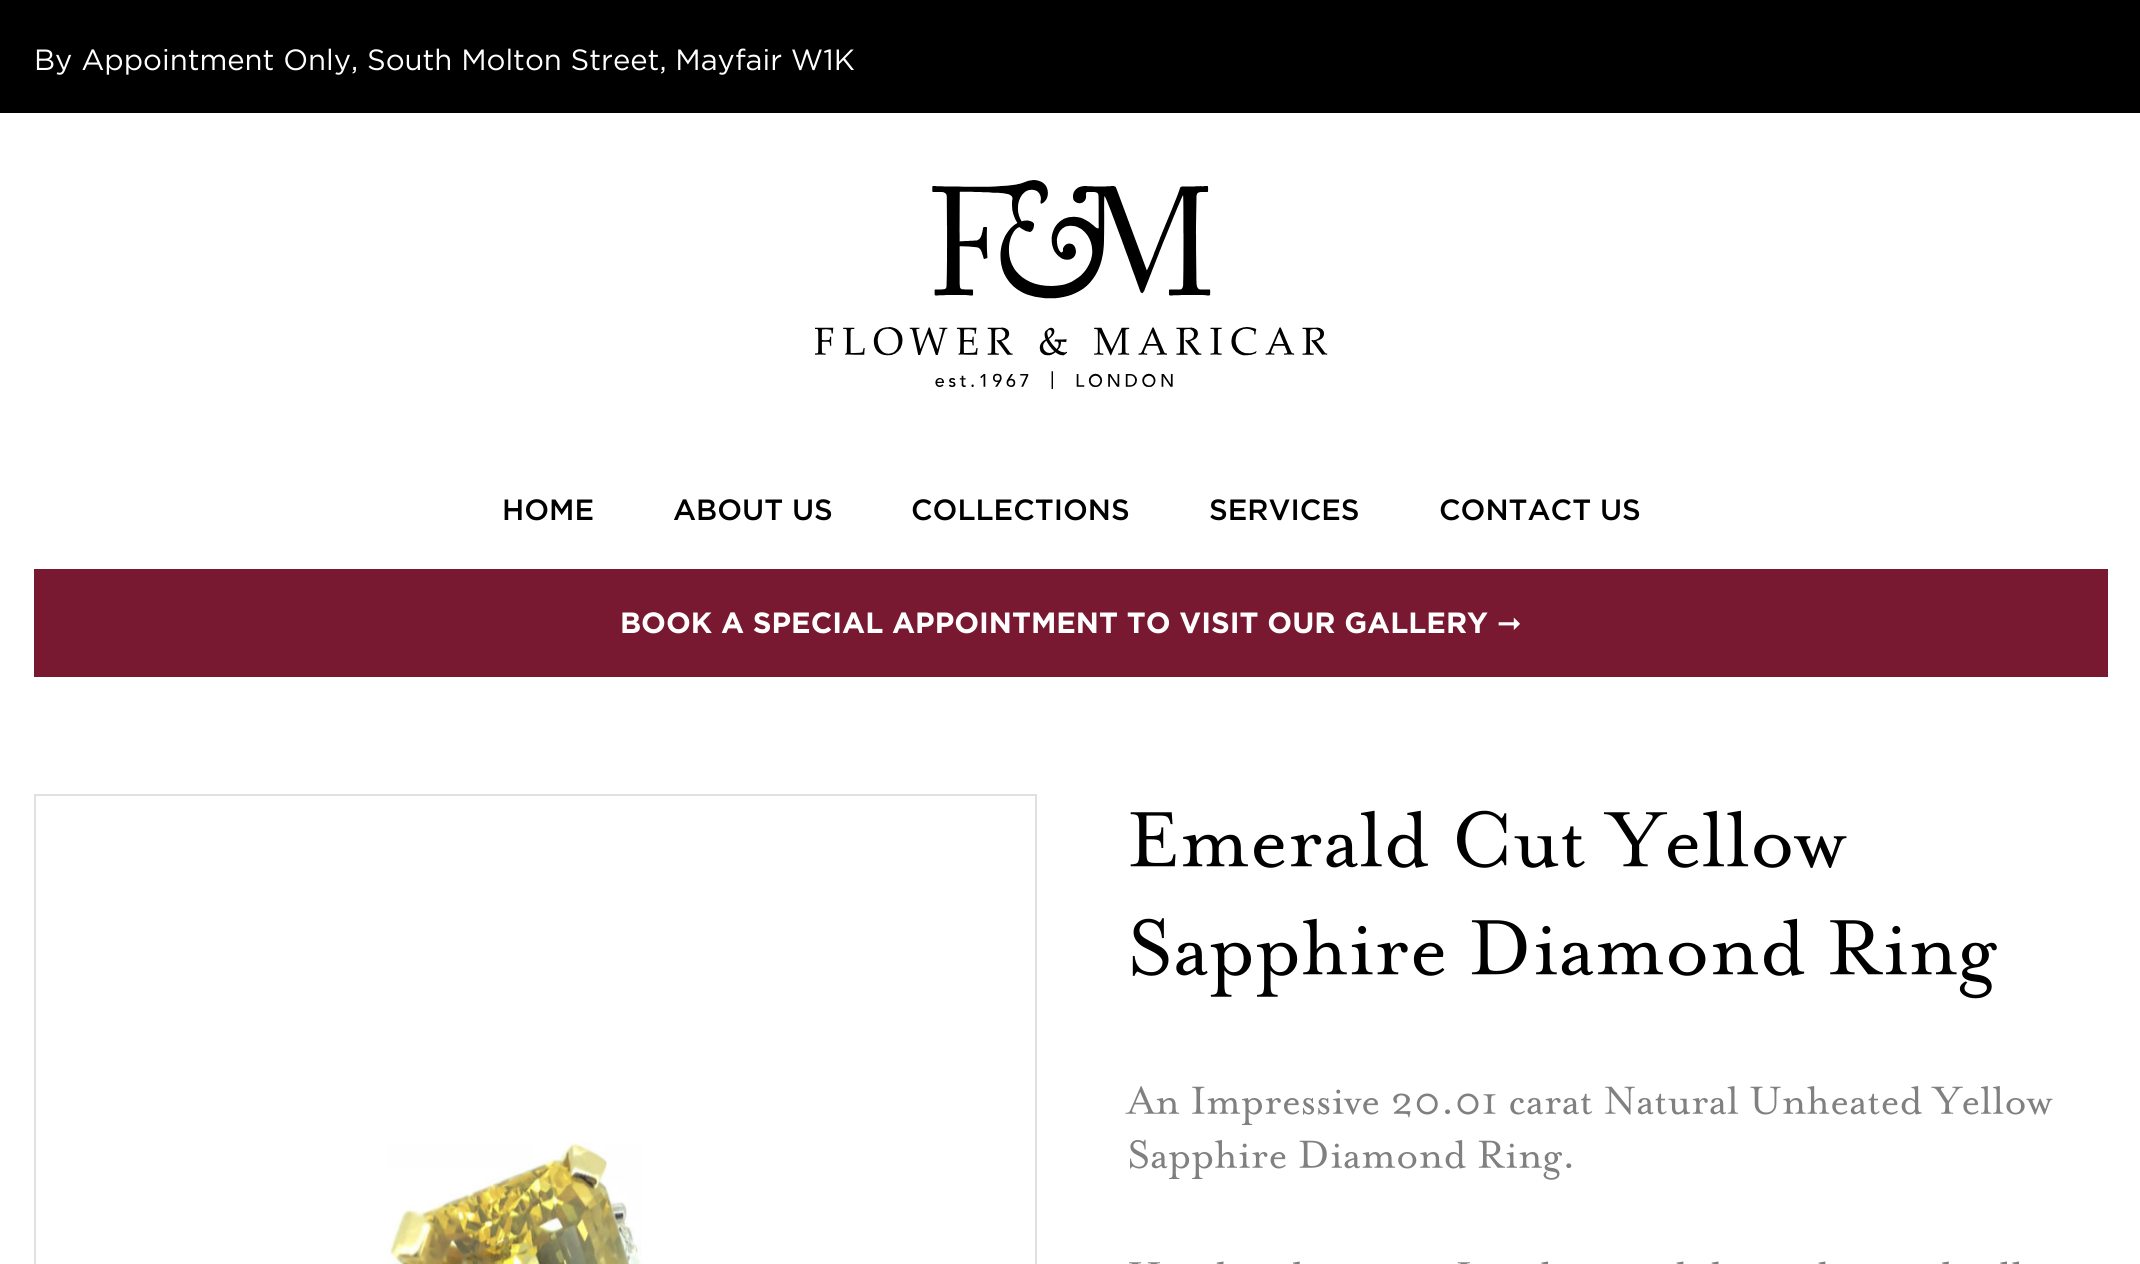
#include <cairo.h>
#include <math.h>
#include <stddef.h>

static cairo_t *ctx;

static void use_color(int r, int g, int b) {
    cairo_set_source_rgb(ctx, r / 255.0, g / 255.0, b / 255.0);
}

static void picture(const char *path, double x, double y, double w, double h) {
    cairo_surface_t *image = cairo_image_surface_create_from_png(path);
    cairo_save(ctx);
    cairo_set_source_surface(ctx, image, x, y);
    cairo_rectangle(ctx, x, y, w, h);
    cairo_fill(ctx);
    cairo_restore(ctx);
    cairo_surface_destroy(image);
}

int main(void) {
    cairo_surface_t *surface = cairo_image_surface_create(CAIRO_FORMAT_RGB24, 2140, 1264);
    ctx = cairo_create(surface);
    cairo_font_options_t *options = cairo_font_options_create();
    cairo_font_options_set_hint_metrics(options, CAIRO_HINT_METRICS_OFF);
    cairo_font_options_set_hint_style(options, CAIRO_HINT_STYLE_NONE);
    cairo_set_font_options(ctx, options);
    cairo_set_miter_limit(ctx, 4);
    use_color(255, 255, 255);
    cairo_paint(ctx);
    use_color(0, 0, 0);
    cairo_rectangle(ctx, 0, 0, 2140, 113);
    cairo_fill(ctx);
    cairo_select_font_face(ctx, "Gotham", CAIRO_FONT_SLANT_NORMAL, CAIRO_FONT_WEIGHT_NORMAL);
    cairo_set_font_size(ctx, 29.25);
    use_color(255, 255, 255);
    cairo_move_to(ctx, 34, 70);
    cairo_show_text(ctx, "By Appointment Only, South Molton Street, Mayfair W1K");
    picture("img1.png", 815, 180, 513, 209);
    cairo_select_font_face(ctx, "Gotham Medium", CAIRO_FONT_SLANT_NORMAL, CAIRO_FONT_WEIGHT_NORMAL);
    use_color(0, 0, 0);
    cairo_move_to(ctx, 502, 520);
    cairo_show_text(ctx, "HOME");
    cairo_move_to(ctx, 673, 520);
    cairo_show_text(ctx, "ABOUT US");
    cairo_move_to(ctx, 911, 520);
    cairo_show_text(ctx, "COLLECTIONS");
    cairo_move_to(ctx, 1209, 520);
    cairo_show_text(ctx, "SERVICES");
    cairo_move_to(ctx, 1439, 520);
    cairo_show_text(ctx, "CONTACT US");
    use_color(120, 25, 49);
    cairo_rectangle(ctx, 34, 569, 2074, 108);
    cairo_fill(ctx);
    cairo_select_font_face(ctx, "Gotham", CAIRO_FONT_SLANT_NORMAL, CAIRO_FONT_WEIGHT_BOLD);
    use_color(255, 255, 255);
    cairo_move_to(ctx, 620, 633);
    cairo_show_text(ctx, "BOOK A SPECIAL APPOINTMENT TO VISIT OUR GALLERY");
    cairo_select_font_face(ctx, "DejaVu Sans", CAIRO_FONT_SLANT_NORMAL, CAIRO_FONT_WEIGHT_NORMAL);
    cairo_move_to(ctx, 1497, 633);
    cairo_show_text(ctx, "➞");
    cairo_rectangle(ctx, 35, 795, 1001, 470);
    use_color(224, 224, 224);
    cairo_stroke(ctx);
    picture("img2.png", 387, 1143, 255, 121);
    picture("img3.png", 1130, 810, 717, 58);
    picture("img4.png", 1132, 918, 865, 81);
    picture("img5.png", 1125, 1086, 928, 39);
    picture("img6.png", 1130, 1139, 442, 41);
    picture("img7.png", 1129, 1261, 891, 3);
    cairo_surface_write_to_png(surface, "result.png");
    cairo_font_options_destroy(options);
    cairo_destroy(ctx);
    cairo_surface_destroy(surface);
    return 0;
}
